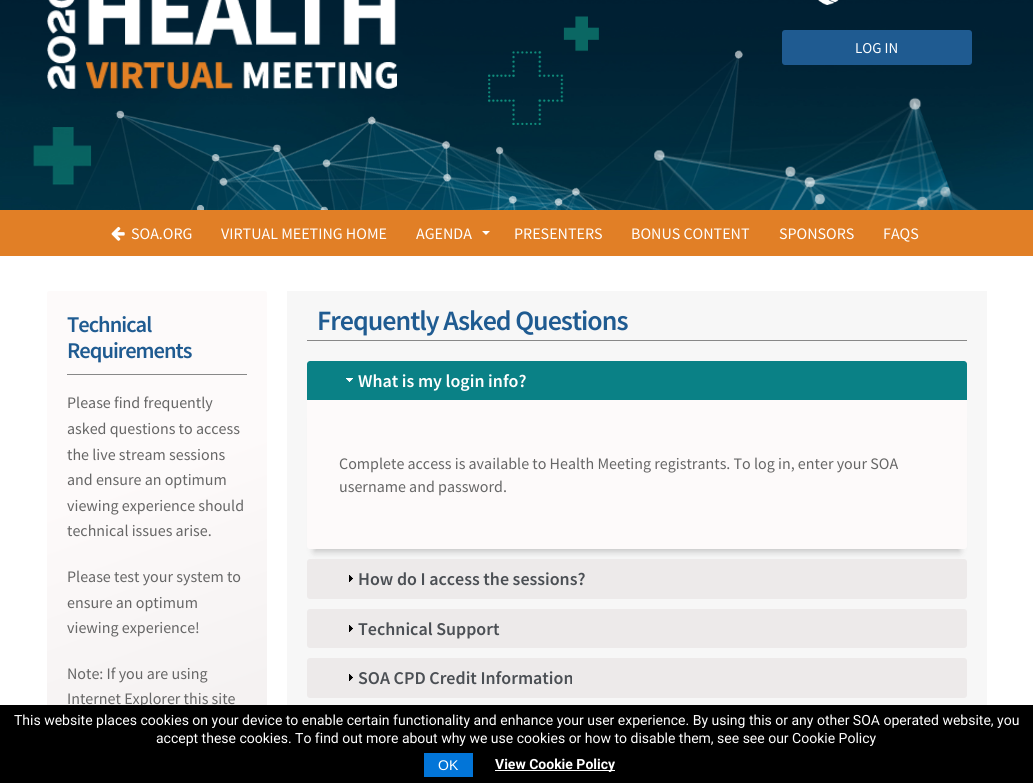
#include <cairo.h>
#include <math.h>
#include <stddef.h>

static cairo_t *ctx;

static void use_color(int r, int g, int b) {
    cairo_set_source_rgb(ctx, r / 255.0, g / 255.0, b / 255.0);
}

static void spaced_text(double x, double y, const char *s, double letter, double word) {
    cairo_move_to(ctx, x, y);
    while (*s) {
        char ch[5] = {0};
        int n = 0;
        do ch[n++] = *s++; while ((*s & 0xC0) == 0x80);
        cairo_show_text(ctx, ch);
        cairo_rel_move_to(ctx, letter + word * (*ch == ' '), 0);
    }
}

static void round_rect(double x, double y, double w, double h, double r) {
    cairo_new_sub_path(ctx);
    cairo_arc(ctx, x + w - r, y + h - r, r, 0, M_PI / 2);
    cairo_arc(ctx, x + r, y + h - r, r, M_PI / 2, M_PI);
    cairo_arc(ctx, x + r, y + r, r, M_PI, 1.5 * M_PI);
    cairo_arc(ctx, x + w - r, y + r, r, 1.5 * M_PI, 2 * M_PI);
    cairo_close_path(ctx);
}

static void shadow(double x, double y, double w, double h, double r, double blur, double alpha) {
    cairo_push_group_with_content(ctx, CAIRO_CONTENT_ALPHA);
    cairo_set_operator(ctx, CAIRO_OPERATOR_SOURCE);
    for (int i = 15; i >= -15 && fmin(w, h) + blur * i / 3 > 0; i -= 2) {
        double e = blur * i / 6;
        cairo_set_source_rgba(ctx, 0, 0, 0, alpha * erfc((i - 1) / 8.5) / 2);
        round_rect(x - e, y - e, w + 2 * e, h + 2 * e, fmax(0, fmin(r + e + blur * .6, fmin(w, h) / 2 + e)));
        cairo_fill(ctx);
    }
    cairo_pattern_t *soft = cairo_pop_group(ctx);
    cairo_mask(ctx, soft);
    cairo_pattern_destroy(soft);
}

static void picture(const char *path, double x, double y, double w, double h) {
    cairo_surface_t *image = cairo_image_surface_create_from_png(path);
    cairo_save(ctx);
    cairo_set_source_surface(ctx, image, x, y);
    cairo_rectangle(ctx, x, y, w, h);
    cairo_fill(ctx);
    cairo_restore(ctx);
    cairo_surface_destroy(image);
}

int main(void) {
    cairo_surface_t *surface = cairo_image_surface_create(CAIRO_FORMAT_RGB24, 1033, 783);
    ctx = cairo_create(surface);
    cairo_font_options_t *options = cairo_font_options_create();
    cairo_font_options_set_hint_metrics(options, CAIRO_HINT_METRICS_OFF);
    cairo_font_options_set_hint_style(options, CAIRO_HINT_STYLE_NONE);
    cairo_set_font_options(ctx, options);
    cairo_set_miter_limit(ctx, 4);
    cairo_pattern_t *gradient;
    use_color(255, 255, 255);
    cairo_paint(ctx);
    picture("img1.png", 0, 0, 1033, 210);
    picture("img2.png", 47, 0, 350, 89);
    picture("img3.png", 818, 0, 21, 5);
    use_color(31, 91, 145);
    round_rect(782, 30, 190, 35, 3);
    cairo_fill(ctx);
    cairo_select_font_face(ctx, "Source Sans Pro", CAIRO_FONT_SLANT_NORMAL, CAIRO_FONT_WEIGHT_NORMAL);
    cairo_set_font_size(ctx, 15);
    use_color(255, 255, 255);
    cairo_move_to(ctx, 855, 53);
    cairo_show_text(ctx, "LOG IN");
    use_color(225, 127, 38);
    cairo_rectangle(ctx, 0, 210, 1033, 46);
    cairo_fill(ctx);
    picture("img4.png", 111, 226, 14, 15);
    cairo_set_font_size(ctx, 16);
    use_color(255, 255, 255);
    cairo_move_to(ctx, 131, 239);
    cairo_show_text(ctx, "SOA.ORG");
    cairo_move_to(ctx, 221, 239);
    cairo_show_text(ctx, "VIRTUAL MEETING HOME");
    cairo_move_to(ctx, 416, 239);
    cairo_show_text(ctx, "AGENDA");
    cairo_new_path(ctx);
    cairo_move_to(ctx, 482, 231);
    cairo_line_to(ctx, 490, 231);
    cairo_line_to(ctx, 486, 235);
    cairo_close_path(ctx);
    cairo_fill(ctx);
    cairo_move_to(ctx, 514, 239);
    cairo_show_text(ctx, "PRESENTERS");
    cairo_move_to(ctx, 631, 239);
    cairo_show_text(ctx, "BONUS CONTENT");
    cairo_move_to(ctx, 779, 239);
    cairo_show_text(ctx, "SPONSORS");
    cairo_move_to(ctx, 883, 239);
    cairo_show_text(ctx, "FAQS");
    gradient = cairo_pattern_create_linear(40, 294, 274, 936);
    cairo_pattern_add_color_stop_rgba(gradient, 0.3, 0.992, 0.98, 0.98, 1);
    cairo_pattern_add_color_stop_rgba(gradient, 1, 0.929, 0.918, 0.918, 1);
    cairo_set_source(ctx, gradient);
    cairo_pattern_destroy(gradient);
    round_rect(47, 291, 220, 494, 2);
    cairo_fill(ctx);
    cairo_select_font_face(ctx, "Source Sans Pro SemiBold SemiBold", CAIRO_FONT_SLANT_NORMAL, CAIRO_FONT_WEIGHT_NORMAL);
    cairo_set_font_size(ctx, 22.5);
    use_color(31, 91, 145);
    spaced_text(67, 332, "Technical", -1, 0);
    spaced_text(67, 358, "Requirements", -1, 0);
    use_color(136, 136, 136);
    cairo_rectangle(ctx, 67, 374, 180, 1);
    cairo_fill(ctx);
    cairo_select_font_face(ctx, "Source Sans Pro", CAIRO_FONT_SLANT_NORMAL, CAIRO_FONT_WEIGHT_NORMAL);
    cairo_set_font_size(ctx, 16);
    use_color(102, 102, 102);
    cairo_move_to(ctx, 67, 408);
    cairo_show_text(ctx, "Please find frequently");
    cairo_move_to(ctx, 67, 434);
    cairo_show_text(ctx, "asked questions to access");
    cairo_move_to(ctx, 67, 460);
    cairo_show_text(ctx, "the live stream sessions");
    cairo_move_to(ctx, 67, 485);
    cairo_show_text(ctx, "and ensure an optimum");
    cairo_move_to(ctx, 67, 511);
    cairo_show_text(ctx, "viewing experience should");
    cairo_move_to(ctx, 67, 536);
    cairo_show_text(ctx, "technical issues arise.");
    cairo_move_to(ctx, 67, 582);
    cairo_show_text(ctx, "Please test your system to");
    cairo_move_to(ctx, 67, 608);
    cairo_show_text(ctx, "ensure an optimum");
    cairo_move_to(ctx, 67, 633);
    cairo_show_text(ctx, "viewing experience!");
    cairo_move_to(ctx, 67, 679);
    cairo_show_text(ctx, "Note: If you are using");
    cairo_move_to(ctx, 67, 704);
    cairo_show_text(ctx, "Internet Explorer this site");
    use_color(247, 247, 247);
    cairo_rectangle(ctx, 287, 291, 700, 414);
    cairo_fill(ctx);
    use_color(136, 136, 136);
    cairo_rectangle(ctx, 307, 340, 660, 1);
    cairo_fill(ctx);
    cairo_select_font_face(ctx, "Source Sans Pro SemiBold SemiBold", CAIRO_FONT_SLANT_NORMAL, CAIRO_FONT_WEIGHT_NORMAL);
    cairo_set_font_size(ctx, 28);
    use_color(31, 91, 145);
    spaced_text(317, 330, "Frequently Asked Questions", -1, 0);
    use_color(10, 129, 134);
    cairo_new_path(ctx);
    cairo_move_to(ctx, 310, 361);
    cairo_line_to(ctx, 964, 361);
    cairo_curve_to(ctx, 965.5, 361, 967, 362.5, 967, 364);
    cairo_line_to(ctx, 967, 400);
    cairo_line_to(ctx, 307, 400);
    cairo_line_to(ctx, 307, 364);
    cairo_curve_to(ctx, 307, 362.5, 308.5, 361, 310, 361);
    cairo_close_path(ctx);
    cairo_fill(ctx);
    picture("img5.png", 346, 378, 7, 4);
    cairo_set_font_size(ctx, 18);
    use_color(255, 255, 255);
    cairo_move_to(ctx, 358, 387);
    cairo_show_text(ctx, "What is my login info?");
    use_color(0, 0, 0);
    shadow(314, 417, 646, 135, 0, 3.5, 0.2);
    use_color(253, 250, 250);
    cairo_new_path(ctx);
    cairo_move_to(ctx, 307, 400);
    cairo_line_to(ctx, 967, 400);
    cairo_line_to(ctx, 967, 546);
    cairo_curve_to(ctx, 967, 547.5, 965.5, 549, 964, 549);
    cairo_line_to(ctx, 310, 549);
    cairo_curve_to(ctx, 308.5, 549, 307, 547.5, 307, 546);
    cairo_close_path(ctx);
    cairo_fill(ctx);
    cairo_select_font_face(ctx, "Source Sans Pro", CAIRO_FONT_SLANT_NORMAL, CAIRO_FONT_WEIGHT_NORMAL);
    cairo_set_font_size(ctx, 16);
    use_color(102, 102, 102);
    cairo_move_to(ctx, 339, 469);
    cairo_show_text(ctx, "Complete access is available to Health Meeting registrants. To log in, enter your SOA");
    cairo_move_to(ctx, 339, 492);
    cairo_show_text(ctx, "username and password.");
    use_color(237, 234, 234);
    round_rect(307, 559, 660, 40, 3);
    cairo_fill(ctx);
    picture("img6.png", 349, 575, 4, 7);
    cairo_select_font_face(ctx, "Source Sans Pro SemiBold SemiBold", CAIRO_FONT_SLANT_NORMAL, CAIRO_FONT_WEIGHT_NORMAL);
    cairo_set_font_size(ctx, 18);
    use_color(75, 79, 84);
    cairo_move_to(ctx, 358, 585);
    cairo_show_text(ctx, "How do I access the sessions?");
    use_color(237, 234, 234);
    round_rect(307, 609, 660, 39, 3);
    cairo_fill(ctx);
    picture("img6.png", 349, 625, 4, 7);
    use_color(75, 79, 84);
    cairo_move_to(ctx, 358, 635);
    cairo_show_text(ctx, "Technical Support");
    use_color(237, 234, 234);
    round_rect(307, 658, 660, 40, 3);
    cairo_fill(ctx);
    picture("img6.png", 349, 674, 4, 7);
    use_color(75, 79, 84);
    cairo_move_to(ctx, 358, 684);
    cairo_show_text(ctx, "SOA CPD Credit Information");
    use_color(0, 0, 0);
    cairo_rectangle(ctx, 0, 705, 1033, 78);
    cairo_fill(ctx);
    cairo_select_font_face(ctx, "Roboto", CAIRO_FONT_SLANT_NORMAL, CAIRO_FONT_WEIGHT_NORMAL);
    cairo_set_font_size(ctx, 14);
    use_color(255, 255, 255);
    cairo_move_to(ctx, 14, 725);
    cairo_show_text(ctx, "This website places cookies on your device to enable certain functionality and enhance your user experience. By using this or any other SOA operated website, you");
    cairo_move_to(ctx, 156, 743);
    cairo_show_text(ctx, "accept these cookies. To find out more about why we use cookies or how to disable them, see see our Cookie Policy");
    use_color(2, 117, 216);
    cairo_rectangle(ctx, 424, 753, 49, 24);
    cairo_fill(ctx);
    cairo_select_font_face(ctx, "Liberation Sans", CAIRO_FONT_SLANT_NORMAL, CAIRO_FONT_WEIGHT_NORMAL);
    use_color(255, 255, 255);
    cairo_move_to(ctx, 438, 770);
    cairo_show_text(ctx, "OK");
    cairo_rectangle(ctx, 495, 770, 120, 1);
    cairo_fill(ctx);
    cairo_select_font_face(ctx, "Roboto", CAIRO_FONT_SLANT_NORMAL, CAIRO_FONT_WEIGHT_BOLD);
    cairo_move_to(ctx, 495, 769);
    cairo_show_text(ctx, "View Cookie Policy");
    cairo_surface_write_to_png(surface, "result.png");
    cairo_font_options_destroy(options);
    cairo_destroy(ctx);
    cairo_surface_destroy(surface);
    return 0;
}
